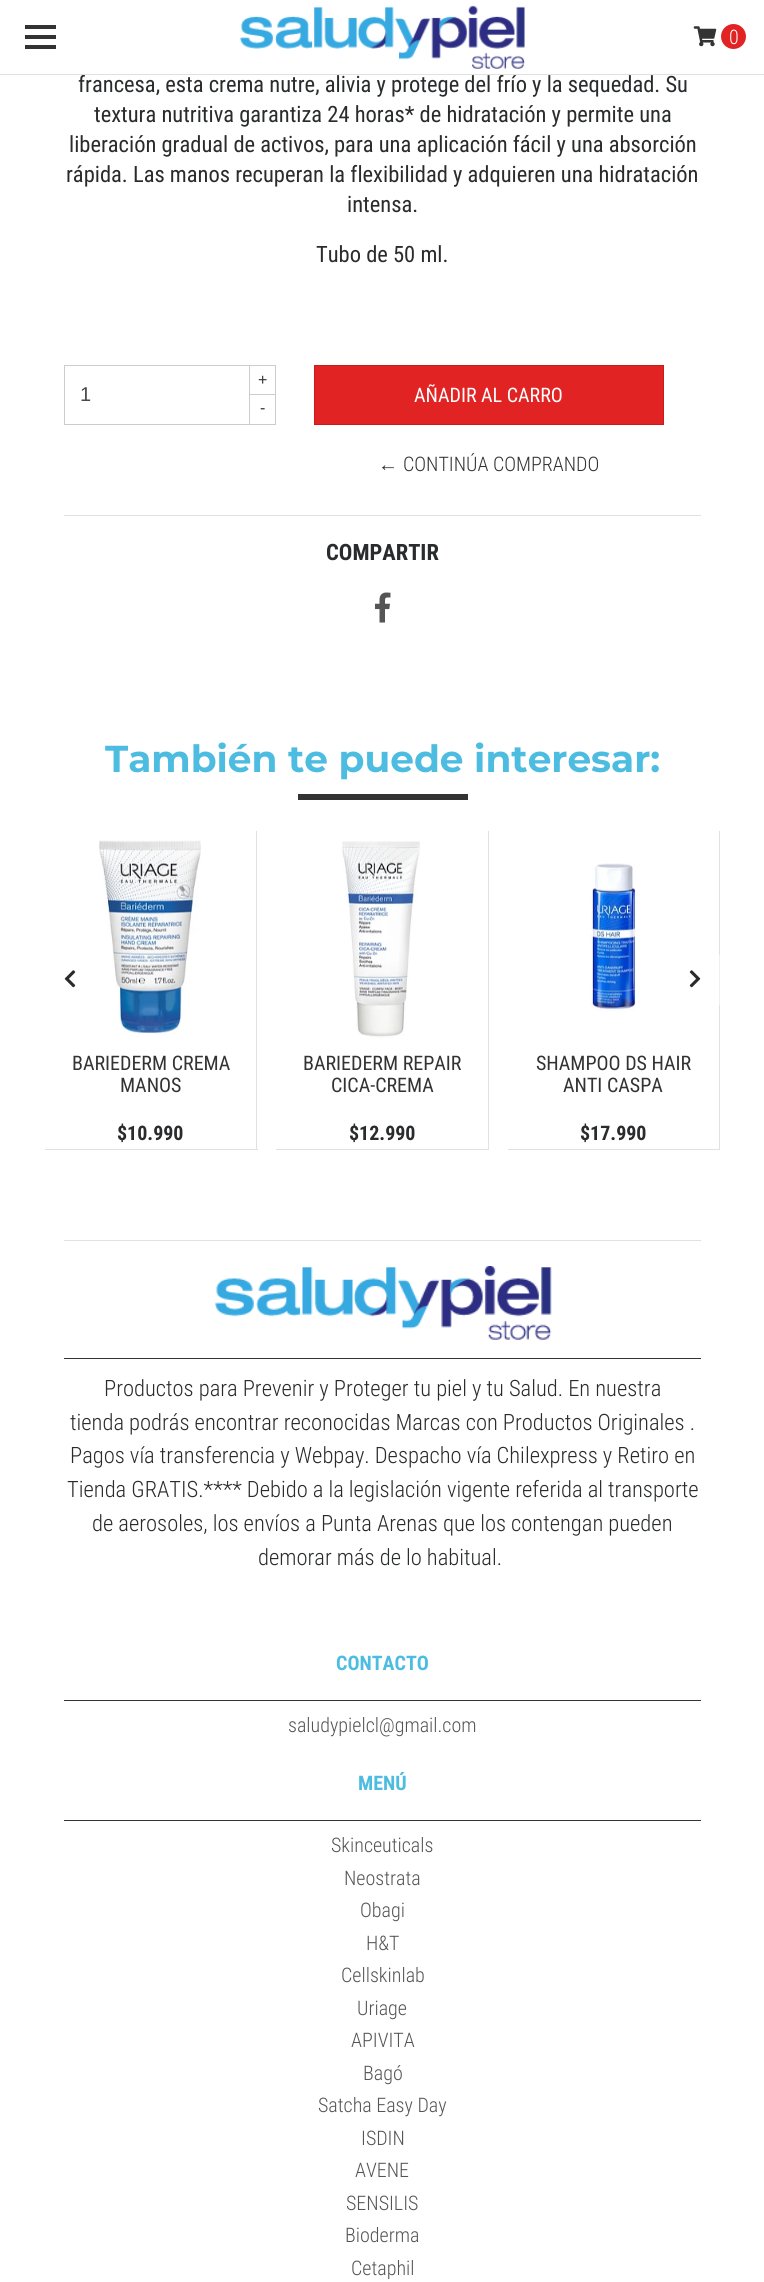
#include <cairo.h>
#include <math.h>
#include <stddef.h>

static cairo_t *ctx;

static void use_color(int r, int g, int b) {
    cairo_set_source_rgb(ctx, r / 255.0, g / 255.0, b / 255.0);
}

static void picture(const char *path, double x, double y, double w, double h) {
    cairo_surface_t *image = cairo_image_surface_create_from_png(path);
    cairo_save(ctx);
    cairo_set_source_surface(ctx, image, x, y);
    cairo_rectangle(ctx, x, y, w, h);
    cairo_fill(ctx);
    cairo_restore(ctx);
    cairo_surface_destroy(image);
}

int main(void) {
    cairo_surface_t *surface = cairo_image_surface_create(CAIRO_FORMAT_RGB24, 764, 2282);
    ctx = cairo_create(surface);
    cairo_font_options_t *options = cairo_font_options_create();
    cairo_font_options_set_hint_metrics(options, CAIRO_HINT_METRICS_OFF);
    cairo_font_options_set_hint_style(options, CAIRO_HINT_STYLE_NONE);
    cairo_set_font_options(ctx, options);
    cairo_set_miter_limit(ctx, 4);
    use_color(255, 255, 255);
    cairo_paint(ctx);
    use_color(51, 51, 51);
    cairo_rectangle(ctx, 25, 25, 31, 4);
    cairo_fill(ctx);
    cairo_rectangle(ctx, 25, 35, 31, 4);
    cairo_fill(ctx);
    cairo_rectangle(ctx, 25, 45, 31, 4);
    cairo_fill(ctx);
    cairo_select_font_face(ctx, "Roboto Condensed", CAIRO_FONT_SLANT_NORMAL, CAIRO_FONT_WEIGHT_NORMAL);
    cairo_set_font_size(ctx, 22.5);
    use_color(41, 43, 44);
    cairo_move_to(ctx, 78, 92);
    cairo_show_text(ctx, "francesa, esta crema nutre, alivia y protege del frío y la sequedad. Su");
    use_color(225, 225, 225);
    cairo_rectangle(ctx, 0, 74, 764, 1);
    cairo_fill(ctx);
    picture("img1.png", 240, 5, 285, 64);
    picture("img2.png", 693, 26, 24, 21);
    use_color(226, 35, 35);
    cairo_arc(ctx, 733.5, 36.5, 12.5, 0, 2 * M_PI);
    cairo_fill(ctx);
    cairo_select_font_face(ctx, "Roboto Condensed Light", CAIRO_FONT_SLANT_NORMAL, CAIRO_FONT_WEIGHT_NORMAL);
    cairo_set_font_size(ctx, 20);
    use_color(255, 255, 255);
    cairo_move_to(ctx, 729, 44);
    cairo_show_text(ctx, "0");
    cairo_select_font_face(ctx, "Roboto Condensed", CAIRO_FONT_SLANT_NORMAL, CAIRO_FONT_WEIGHT_NORMAL);
    cairo_set_font_size(ctx, 22.5);
    use_color(41, 43, 44);
    cairo_move_to(ctx, 94, 122);
    cairo_show_text(ctx, "textura nutritiva garantiza 24 horas* de hidratación y permite una");
    cairo_move_to(ctx, 69, 152);
    cairo_show_text(ctx, "liberación gradual de activos, para una aplicación fácil y una absorción");
    cairo_move_to(ctx, 66, 182);
    cairo_show_text(ctx, "rápida. Las manos recuperan la flexibilidad y adquieren una hidratación");
    cairo_move_to(ctx, 347, 212);
    cairo_show_text(ctx, "intensa.");
    cairo_move_to(ctx, 316, 262);
    cairo_show_text(ctx, "Tubo de 50 ml.");
    cairo_rectangle(ctx, 64.5, 365.5, 211, 59);
    use_color(204, 204, 204);
    cairo_set_line_width(ctx, 1);
    cairo_stroke(ctx);
    cairo_select_font_face(ctx, "Liberation Sans", CAIRO_FONT_SLANT_NORMAL, CAIRO_FONT_WEIGHT_NORMAL);
    cairo_set_font_size(ctx, 20);
    use_color(70, 74, 76);
    cairo_move_to(ctx, 80, 401);
    cairo_show_text(ctx, "1");
    use_color(204, 204, 204);
    cairo_rectangle(ctx, 249, 394, 27, 1);
    cairo_fill(ctx);
    cairo_rectangle(ctx, 249, 366, 1, 58);
    cairo_fill(ctx);
    cairo_set_font_size(ctx, 16);
    use_color(51, 51, 51);
    cairo_move_to(ctx, 258, 385);
    cairo_show_text(ctx, "+");
    cairo_move_to(ctx, 260, 413);
    cairo_show_text(ctx, "-");
    use_color(226, 35, 35);
    cairo_rectangle(ctx, 314.5, 365.5, 349, 59);
    cairo_fill_preserve(ctx);
    use_color(197, 28, 28);
    cairo_stroke(ctx);
    cairo_select_font_face(ctx, "Roboto Condensed", CAIRO_FONT_SLANT_NORMAL, CAIRO_FONT_WEIGHT_NORMAL);
    cairo_set_font_size(ctx, 20);
    use_color(255, 255, 255);
    cairo_move_to(ctx, 414, 402);
    cairo_show_text(ctx, "AÑADIR AL CARRO");
    cairo_select_font_face(ctx, "Liberation Serif", CAIRO_FONT_SLANT_NORMAL, CAIRO_FONT_WEIGHT_NORMAL);
    use_color(51, 51, 51);
    cairo_move_to(ctx, 378, 471);
    cairo_show_text(ctx, "←");
    cairo_select_font_face(ctx, "Roboto Condensed Light", CAIRO_FONT_SLANT_NORMAL, CAIRO_FONT_WEIGHT_NORMAL);
    cairo_move_to(ctx, 403, 471);
    cairo_show_text(ctx, "CONTINÚA COMPRANDO");
    use_color(225, 225, 225);
    cairo_rectangle(ctx, 64, 515, 637, 1);
    cairo_fill(ctx);
    cairo_select_font_face(ctx, "Roboto Condensed", CAIRO_FONT_SLANT_NORMAL, CAIRO_FONT_WEIGHT_BOLD);
    cairo_set_font_size(ctx, 22.5);
    use_color(41, 43, 44);
    cairo_move_to(ctx, 326, 560);
    cairo_show_text(ctx, "COMPARTIR");
    picture("img3.png", 375, 592, 16, 31);
    cairo_select_font_face(ctx, "Montserrat", CAIRO_FONT_SLANT_NORMAL, CAIRO_FONT_WEIGHT_BOLD);
    cairo_set_font_size(ctx, 37.5);
    use_color(77, 188, 225);
    cairo_move_to(ctx, 105, 772);
    cairo_show_text(ctx, "También te puede interesar:");
    use_color(51, 51, 51);
    cairo_rectangle(ctx, 298, 794, 170, 6);
    cairo_fill(ctx);
    picture("img4.png", 64, 970, 12, 18);
    picture("img5.png", 689, 970, 12, 18);
    use_color(225, 225, 225);
    cairo_rectangle(ctx, 256, 831, 1, 319);
    cairo_fill(ctx);
    cairo_rectangle(ctx, 45, 1149, 213, 1);
    cairo_fill(ctx);
    picture("img6.png", 99, 840, 102, 195);
    cairo_select_font_face(ctx, "Roboto Condensed", CAIRO_FONT_SLANT_NORMAL, CAIRO_FONT_WEIGHT_NORMAL);
    cairo_set_font_size(ctx, 20);
    use_color(51, 51, 51);
    cairo_move_to(ctx, 72, 1070);
    cairo_show_text(ctx, "BARIEDERM CREMA");
    cairo_move_to(ctx, 120, 1092);
    cairo_show_text(ctx, "MANOS");
    cairo_select_font_face(ctx, "Roboto Condensed", CAIRO_FONT_SLANT_NORMAL, CAIRO_FONT_WEIGHT_BOLD);
    use_color(41, 43, 44);
    cairo_move_to(ctx, 117, 1140);
    cairo_show_text(ctx, "$10.990");
    use_color(225, 225, 225);
    cairo_rectangle(ctx, 488, 831, 1, 319);
    cairo_fill(ctx);
    cairo_rectangle(ctx, 276, 1149, 213, 1);
    cairo_fill(ctx);
    picture("img7.png", 342, 841, 78, 198);
    cairo_select_font_face(ctx, "Roboto Condensed", CAIRO_FONT_SLANT_NORMAL, CAIRO_FONT_WEIGHT_NORMAL);
    use_color(51, 51, 51);
    cairo_move_to(ctx, 303, 1070);
    cairo_show_text(ctx, "BARIEDERM REPAIR");
    cairo_move_to(ctx, 331, 1092);
    cairo_show_text(ctx, "CICA-CREMA");
    cairo_select_font_face(ctx, "Roboto Condensed", CAIRO_FONT_SLANT_NORMAL, CAIRO_FONT_WEIGHT_BOLD);
    use_color(41, 43, 44);
    cairo_move_to(ctx, 349, 1140);
    cairo_show_text(ctx, "$12.990");
    use_color(225, 225, 225);
    cairo_rectangle(ctx, 719, 831, 1, 319);
    cairo_fill(ctx);
    use_color(240, 240, 240);
    cairo_rectangle(ctx, 719, 955, 1, 50);
    cairo_fill(ctx);
    use_color(225, 225, 225);
    cairo_rectangle(ctx, 508, 1149, 212, 1);
    cairo_fill(ctx);
    picture("img8.png", 590, 863, 46, 148);
    cairo_select_font_face(ctx, "Roboto Condensed", CAIRO_FONT_SLANT_NORMAL, CAIRO_FONT_WEIGHT_NORMAL);
    use_color(51, 51, 51);
    cairo_move_to(ctx, 536, 1070);
    cairo_show_text(ctx, "SHAMPOO DS HAIR");
    cairo_move_to(ctx, 563, 1092);
    cairo_show_text(ctx, "ANTI CASPA");
    cairo_select_font_face(ctx, "Roboto Condensed", CAIRO_FONT_SLANT_NORMAL, CAIRO_FONT_WEIGHT_BOLD);
    use_color(41, 43, 44);
    cairo_move_to(ctx, 580, 1140);
    cairo_show_text(ctx, "$17.990");
    use_color(225, 225, 225);
    cairo_rectangle(ctx, 64, 1240, 637, 1);
    cairo_fill(ctx);
    picture("img9.png", 215, 1266, 337, 74);
    use_color(51, 51, 51);
    cairo_rectangle(ctx, 64, 1358, 637, 1);
    cairo_fill(ctx);
    cairo_select_font_face(ctx, "Roboto Condensed Light", CAIRO_FONT_SLANT_NORMAL, CAIRO_FONT_WEIGHT_NORMAL);
    cairo_set_font_size(ctx, 22.5);
    use_color(41, 43, 44);
    cairo_move_to(ctx, 104, 1396);
    cairo_show_text(ctx, "Productos para Prevenir y Proteger tu piel y tu Salud. En nuestra");
    cairo_move_to(ctx, 70, 1430);
    cairo_show_text(ctx, "tienda podrás encontrar reconocidas Marcas con Productos Originales .");
    cairo_move_to(ctx, 70, 1463);
    cairo_show_text(ctx, "Pagos vía transferencia y Webpay. Despacho vía Chilexpress y Retiro en");
    cairo_move_to(ctx, 67, 1497);
    cairo_show_text(ctx, "Tienda GRATIS.**** Debido a la legislación vigente referida al transporte");
    cairo_move_to(ctx, 92, 1531);
    cairo_show_text(ctx, "de aerosoles, los envíos a Punta Arenas que los contengan pueden");
    cairo_move_to(ctx, 258, 1565);
    cairo_show_text(ctx, "demorar más de lo habitual.");
    use_color(51, 51, 51);
    cairo_rectangle(ctx, 64, 1700, 637, 1);
    cairo_fill(ctx);
    cairo_select_font_face(ctx, "Roboto Condensed", CAIRO_FONT_SLANT_NORMAL, CAIRO_FONT_WEIGHT_BOLD);
    cairo_set_font_size(ctx, 20);
    use_color(77, 188, 225);
    cairo_move_to(ctx, 336, 1670);
    cairo_show_text(ctx, "CONTACTO");
    cairo_select_font_face(ctx, "Roboto Condensed Light", CAIRO_FONT_SLANT_NORMAL, CAIRO_FONT_WEIGHT_NORMAL);
    use_color(85, 85, 85);
    cairo_move_to(ctx, 288, 1732);
    cairo_show_text(ctx, "saludypielcl@gmail.com");
    use_color(51, 51, 51);
    cairo_rectangle(ctx, 64, 1820, 637, 1);
    cairo_fill(ctx);
    cairo_select_font_face(ctx, "Roboto Condensed", CAIRO_FONT_SLANT_NORMAL, CAIRO_FONT_WEIGHT_BOLD);
    use_color(77, 188, 225);
    cairo_move_to(ctx, 358, 1790);
    cairo_show_text(ctx, "MENÚ");
    cairo_select_font_face(ctx, "Roboto Condensed Light", CAIRO_FONT_SLANT_NORMAL, CAIRO_FONT_WEIGHT_NORMAL);
    use_color(85, 85, 85);
    cairo_move_to(ctx, 331, 1852);
    cairo_show_text(ctx, "Skinceuticals");
    cairo_move_to(ctx, 344, 1885);
    cairo_show_text(ctx, "Neostrata");
    cairo_move_to(ctx, 360, 1917);
    cairo_show_text(ctx, "Obagi");
    cairo_move_to(ctx, 366, 1950);
    cairo_show_text(ctx, "H&T");
    cairo_move_to(ctx, 341, 1982);
    cairo_show_text(ctx, "Cellskinlab");
    cairo_move_to(ctx, 357, 2015);
    cairo_show_text(ctx, "Uriage");
    cairo_move_to(ctx, 351, 2047);
    cairo_show_text(ctx, "APIVITA");
    cairo_move_to(ctx, 363, 2080);
    cairo_show_text(ctx, "Bagó");
    cairo_move_to(ctx, 318, 2112);
    cairo_show_text(ctx, "Satcha Easy Day");
    cairo_move_to(ctx, 361, 2145);
    cairo_show_text(ctx, "ISDIN");
    cairo_move_to(ctx, 355, 2177);
    cairo_show_text(ctx, "AVENE");
    cairo_move_to(ctx, 346, 2210);
    cairo_show_text(ctx, "SENSILIS");
    cairo_move_to(ctx, 345, 2242);
    cairo_show_text(ctx, "Bioderma");
    cairo_move_to(ctx, 351, 2275);
    cairo_show_text(ctx, "Cetaphil");
    cairo_surface_write_to_png(surface, "result.png");
    cairo_font_options_destroy(options);
    cairo_destroy(ctx);
    cairo_surface_destroy(surface);
    return 0;
}
